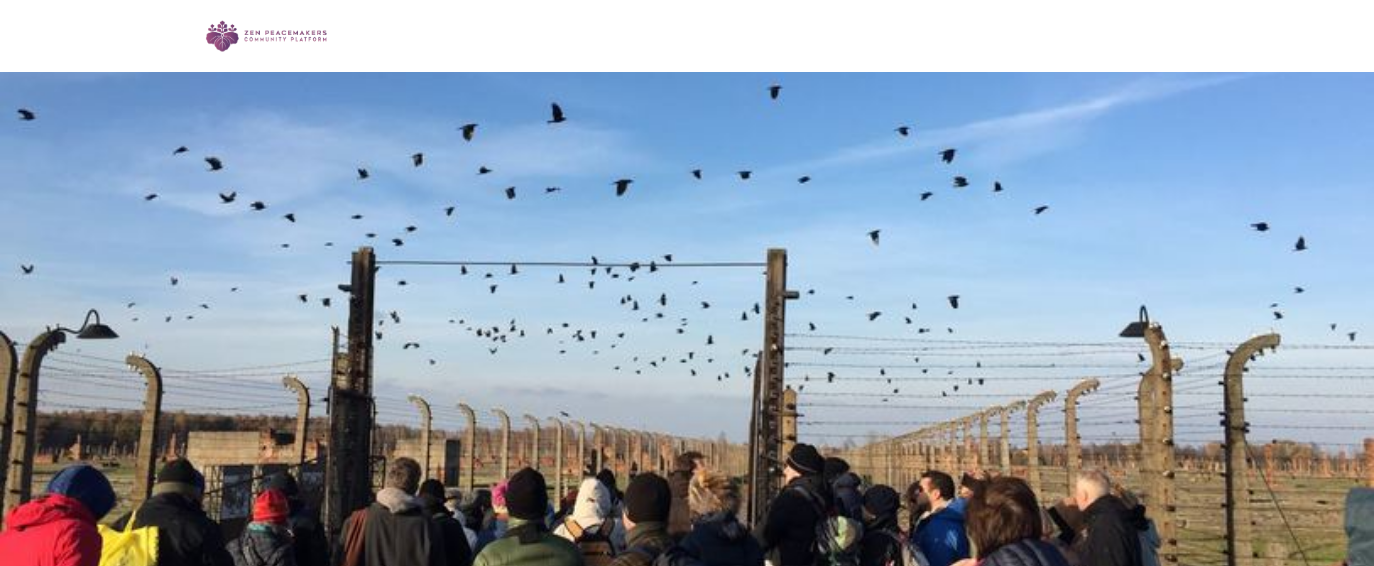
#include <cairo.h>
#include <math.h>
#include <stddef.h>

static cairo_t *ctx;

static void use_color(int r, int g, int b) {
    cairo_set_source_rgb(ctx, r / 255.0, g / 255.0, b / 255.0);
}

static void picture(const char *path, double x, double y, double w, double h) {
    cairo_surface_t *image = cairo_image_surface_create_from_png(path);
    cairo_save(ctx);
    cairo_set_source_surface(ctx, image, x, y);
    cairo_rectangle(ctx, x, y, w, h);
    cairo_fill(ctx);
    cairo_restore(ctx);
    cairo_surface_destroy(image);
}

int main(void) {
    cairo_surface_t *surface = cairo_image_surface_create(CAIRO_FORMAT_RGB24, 1374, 566);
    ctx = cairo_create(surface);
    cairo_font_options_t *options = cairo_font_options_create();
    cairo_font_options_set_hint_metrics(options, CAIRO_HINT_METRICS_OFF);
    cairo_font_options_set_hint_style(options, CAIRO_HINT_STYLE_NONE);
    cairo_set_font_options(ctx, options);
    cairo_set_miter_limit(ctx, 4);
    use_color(255, 255, 255);
    cairo_paint(ctx);
    picture("img1.png", 205, 20, 122, 32);
    picture("img2.png", 0, 72, 1374, 494);
    cairo_surface_write_to_png(surface, "result.png");
    cairo_font_options_destroy(options);
    cairo_destroy(ctx);
    cairo_surface_destroy(surface);
    return 0;
}
